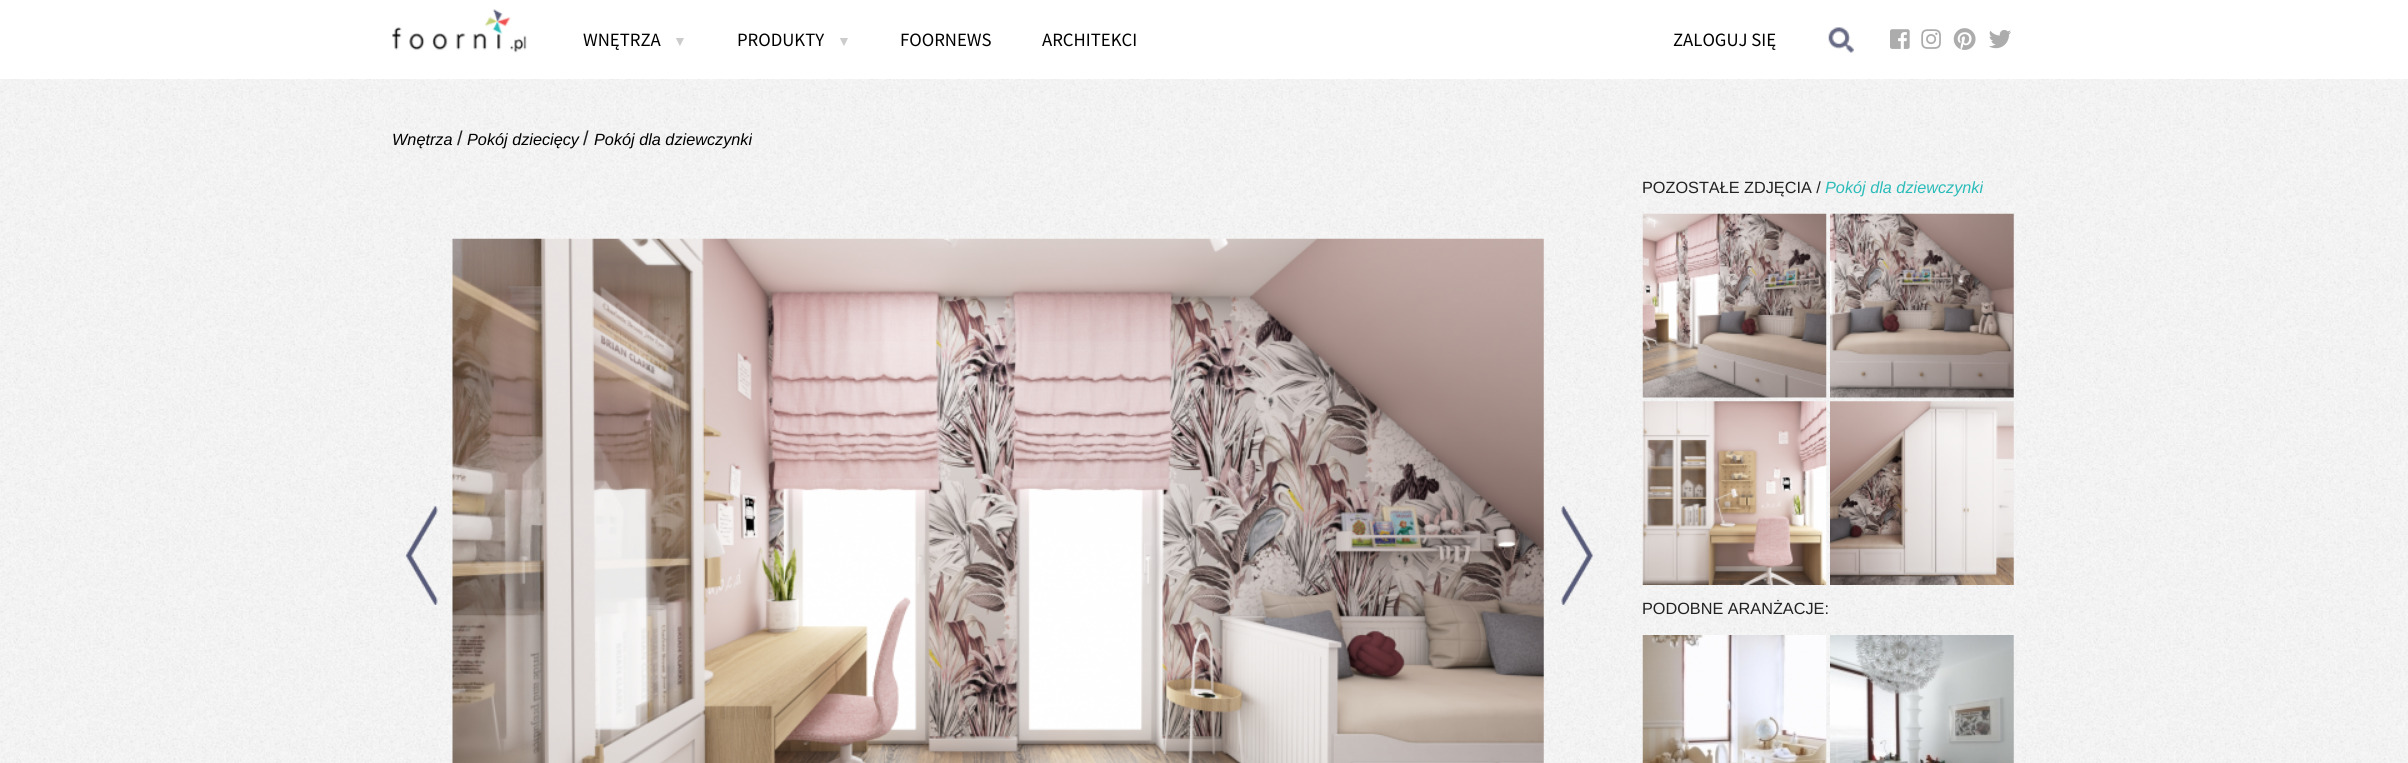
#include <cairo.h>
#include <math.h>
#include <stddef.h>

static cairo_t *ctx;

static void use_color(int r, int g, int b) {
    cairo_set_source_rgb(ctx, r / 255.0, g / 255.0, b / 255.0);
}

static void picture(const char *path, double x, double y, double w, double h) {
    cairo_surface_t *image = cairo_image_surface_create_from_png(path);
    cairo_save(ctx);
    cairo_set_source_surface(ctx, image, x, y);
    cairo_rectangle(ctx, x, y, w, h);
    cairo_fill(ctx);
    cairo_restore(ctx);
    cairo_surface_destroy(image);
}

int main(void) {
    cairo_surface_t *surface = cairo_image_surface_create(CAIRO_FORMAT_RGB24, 2408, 763);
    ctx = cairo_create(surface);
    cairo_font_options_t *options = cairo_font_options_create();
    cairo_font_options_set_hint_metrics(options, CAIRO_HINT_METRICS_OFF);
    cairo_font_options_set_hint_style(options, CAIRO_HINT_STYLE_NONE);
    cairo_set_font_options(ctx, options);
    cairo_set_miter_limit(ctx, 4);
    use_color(255, 255, 255);
    cairo_paint(ctx);
    picture("img1.png", 0, 79, 2408, 684);
    picture("img2.png", 392, 9, 135, 44);
    cairo_select_font_face(ctx, "Source Sans Pro", CAIRO_FONT_SLANT_NORMAL, CAIRO_FONT_WEIGHT_NORMAL);
    cairo_set_font_size(ctx, 18.75);
    use_color(0, 0, 0);
    cairo_move_to(ctx, 583, 46);
    cairo_show_text(ctx, "WNĘTRZA");
    cairo_select_font_face(ctx, "Liberation Sans", CAIRO_FONT_SLANT_NORMAL, CAIRO_FONT_WEIGHT_NORMAL);
    cairo_set_font_size(ctx, 14);
    use_color(204, 204, 204);
    cairo_move_to(ctx, 673, 46);
    cairo_show_text(ctx, "▼");
    cairo_select_font_face(ctx, "Source Sans Pro", CAIRO_FONT_SLANT_NORMAL, CAIRO_FONT_WEIGHT_NORMAL);
    cairo_set_font_size(ctx, 18.75);
    use_color(0, 0, 0);
    cairo_move_to(ctx, 737, 46);
    cairo_show_text(ctx, "PRODUKTY");
    cairo_select_font_face(ctx, "Liberation Sans", CAIRO_FONT_SLANT_NORMAL, CAIRO_FONT_WEIGHT_NORMAL);
    cairo_set_font_size(ctx, 14);
    use_color(204, 204, 204);
    cairo_move_to(ctx, 837, 46);
    cairo_show_text(ctx, "▼");
    cairo_select_font_face(ctx, "Source Sans Pro", CAIRO_FONT_SLANT_NORMAL, CAIRO_FONT_WEIGHT_NORMAL);
    cairo_set_font_size(ctx, 18.75);
    use_color(0, 0, 0);
    cairo_move_to(ctx, 900, 46);
    cairo_show_text(ctx, "FOORNEWS");
    cairo_move_to(ctx, 1042, 46);
    cairo_show_text(ctx, "ARCHITEKCI");
    cairo_move_to(ctx, 1673, 46);
    cairo_show_text(ctx, "ZALOGUJ SIĘ");
    picture("img3.png", 1828, 27, 26, 26);
    picture("img4.png", 1890, 29, 20, 20);
    picture("img5.png", 1921, 29, 20, 20);
    picture("img6.png", 1953, 28, 23, 22);
    picture("img7.png", 1989, 29, 22, 20);
    cairo_select_font_face(ctx, "Arimo", CAIRO_FONT_SLANT_ITALIC, CAIRO_FONT_WEIGHT_NORMAL);
    cairo_set_font_size(ctx, 16.25);
    cairo_move_to(ctx, 392, 145);
    cairo_show_text(ctx, "Wnętrza");
    cairo_select_font_face(ctx, "Arimo", CAIRO_FONT_SLANT_NORMAL, CAIRO_FONT_WEIGHT_NORMAL);
    cairo_set_font_size(ctx, 20);
    use_color(34, 34, 34);
    cairo_move_to(ctx, 457, 145);
    cairo_show_text(ctx, "/");
    cairo_select_font_face(ctx, "Arimo", CAIRO_FONT_SLANT_ITALIC, CAIRO_FONT_WEIGHT_NORMAL);
    cairo_set_font_size(ctx, 16.25);
    use_color(0, 0, 0);
    cairo_move_to(ctx, 467, 145);
    cairo_show_text(ctx, "Pokój dziecięcy");
    cairo_select_font_face(ctx, "Arimo", CAIRO_FONT_SLANT_NORMAL, CAIRO_FONT_WEIGHT_NORMAL);
    cairo_set_font_size(ctx, 20);
    use_color(34, 34, 34);
    cairo_move_to(ctx, 583, 145);
    cairo_show_text(ctx, "/");
    cairo_select_font_face(ctx, "Arimo", CAIRO_FONT_SLANT_ITALIC, CAIRO_FONT_WEIGHT_NORMAL);
    cairo_set_font_size(ctx, 16.25);
    use_color(0, 0, 0);
    cairo_move_to(ctx, 594, 145);
    cairo_show_text(ctx, "Pokój dla dziewczynki");
    picture("img8.png", 452, 238, 1092, 525);
    picture("img9.png", 405, 506, 33, 99);
    picture("img10.png", 1561, 506, 32, 99);
    cairo_select_font_face(ctx, "Arimo", CAIRO_FONT_SLANT_NORMAL, CAIRO_FONT_WEIGHT_NORMAL);
    use_color(34, 34, 34);
    cairo_move_to(ctx, 1642, 193);
    cairo_show_text(ctx, "POZOSTAŁE ZDJĘCIA /");
    cairo_select_font_face(ctx, "Arimo", CAIRO_FONT_SLANT_ITALIC, CAIRO_FONT_WEIGHT_NORMAL);
    use_color(43, 188, 185);
    cairo_move_to(ctx, 1825, 193);
    cairo_show_text(ctx, "Pokój dla dziewczynki");
    picture("img11.png", 1642, 213, 185, 185);
    picture("img12.png", 1830, 213, 184, 185);
    picture("img13.png", 1642, 401, 185, 184);
    picture("img14.png", 1830, 401, 184, 184);
    cairo_select_font_face(ctx, "Arimo", CAIRO_FONT_SLANT_NORMAL, CAIRO_FONT_WEIGHT_NORMAL);
    use_color(34, 34, 34);
    cairo_move_to(ctx, 1642, 614);
    cairo_show_text(ctx, "PODOBNE ARANŻACJE:");
    picture("img15.png", 1642, 635, 185, 128);
    picture("img16.png", 1830, 635, 184, 128);
    cairo_surface_write_to_png(surface, "result.png");
    cairo_font_options_destroy(options);
    cairo_destroy(ctx);
    cairo_surface_destroy(surface);
    return 0;
}
